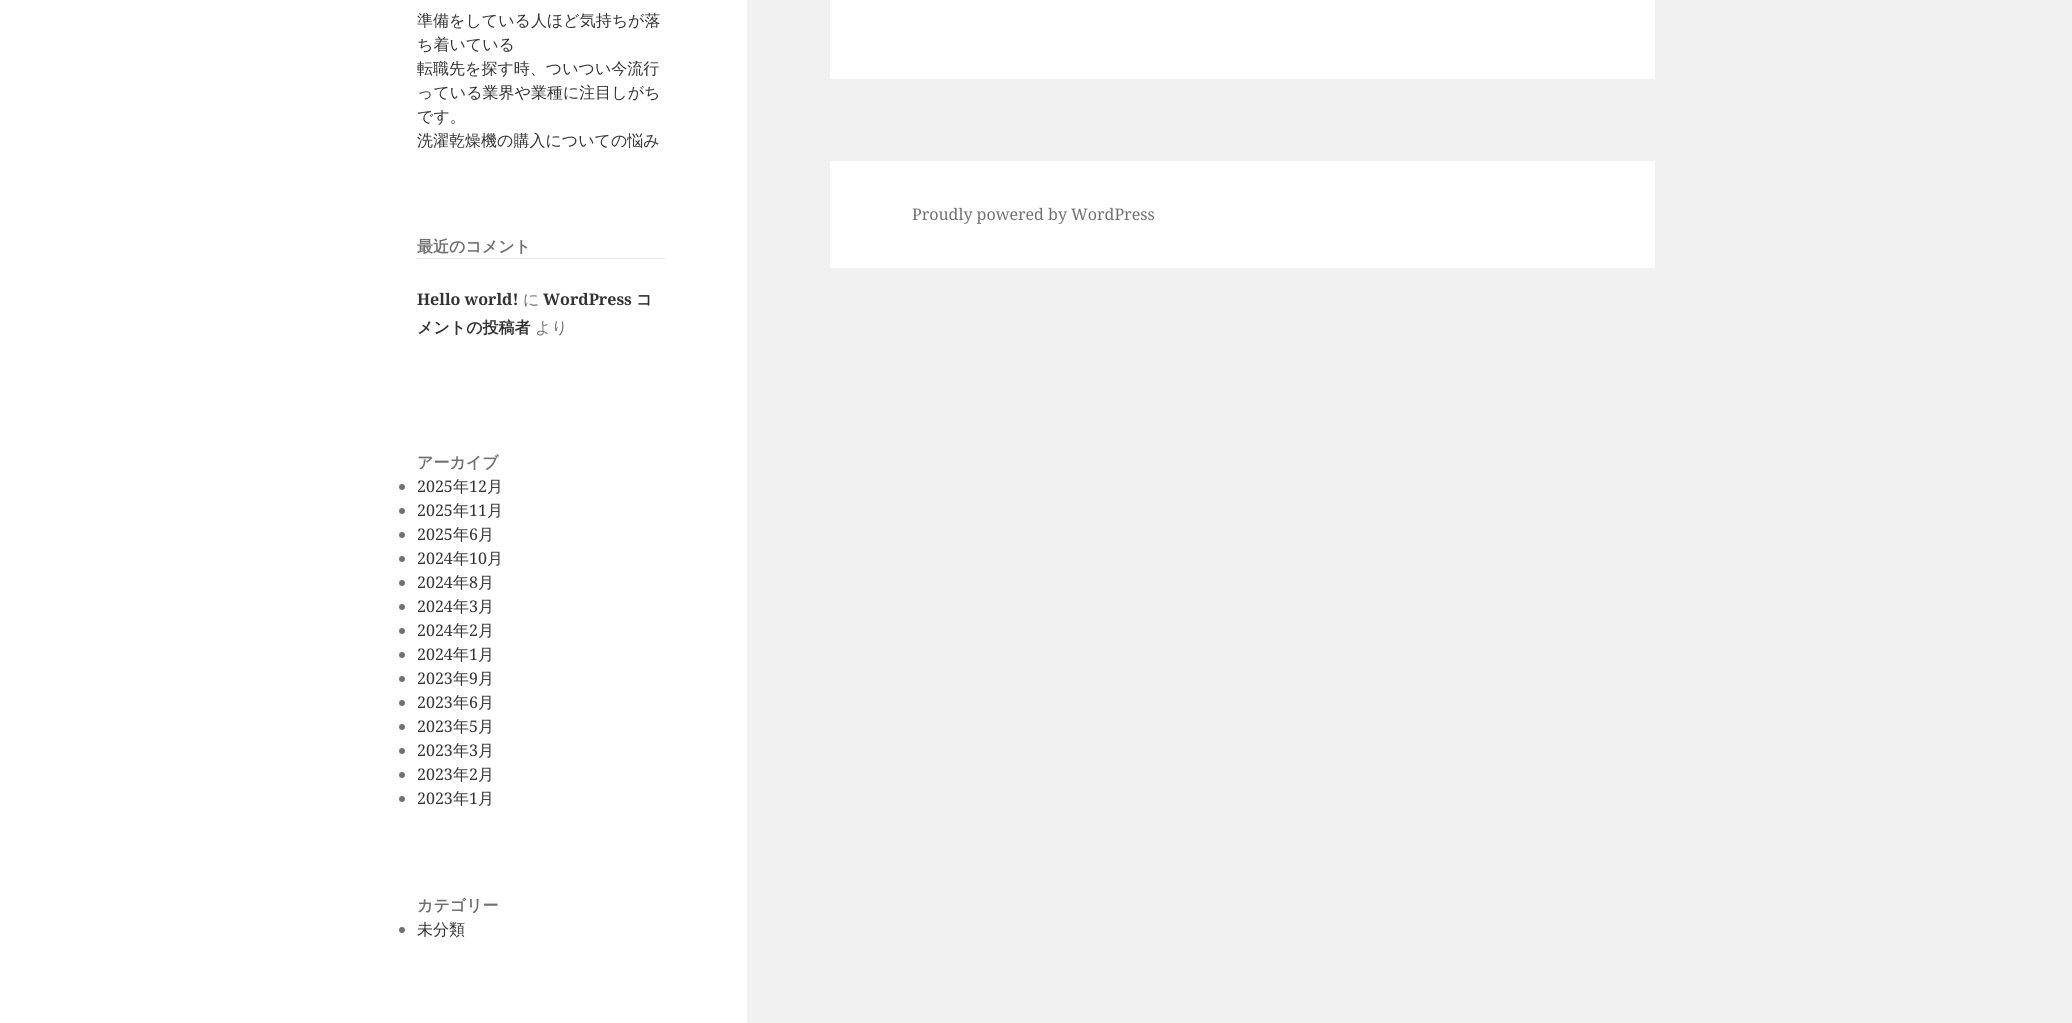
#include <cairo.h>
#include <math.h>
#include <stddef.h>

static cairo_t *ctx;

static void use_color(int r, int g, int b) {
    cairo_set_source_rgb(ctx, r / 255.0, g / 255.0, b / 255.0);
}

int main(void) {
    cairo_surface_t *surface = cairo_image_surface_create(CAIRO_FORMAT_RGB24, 2072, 1023);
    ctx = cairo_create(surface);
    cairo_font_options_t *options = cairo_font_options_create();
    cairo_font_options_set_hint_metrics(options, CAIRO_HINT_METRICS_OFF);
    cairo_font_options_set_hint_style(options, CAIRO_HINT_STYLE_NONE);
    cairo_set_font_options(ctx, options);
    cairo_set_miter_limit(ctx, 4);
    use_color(241, 241, 241);
    cairo_paint(ctx);
    use_color(255, 255, 255);
    cairo_rectangle(ctx, 0, 0, 747, 1023);
    cairo_fill(ctx);
    cairo_select_font_face(ctx, "WenQuanYi Zen Hei Medium", CAIRO_FONT_SLANT_NORMAL, CAIRO_FONT_WEIGHT_NORMAL);
    cairo_set_font_size(ctx, 16);
    use_color(51, 51, 51);
    cairo_move_to(ctx, 417, 26);
    cairo_show_text(ctx, "準備をしている人ほど気持ちが落");
    cairo_move_to(ctx, 417, 50);
    cairo_show_text(ctx, "ち着いている");
    cairo_move_to(ctx, 417, 74);
    cairo_show_text(ctx, "転職先を探す時、ついつい今流行");
    cairo_move_to(ctx, 417, 98);
    cairo_show_text(ctx, "っている業界や業種に注目しがち");
    cairo_move_to(ctx, 417, 122);
    cairo_show_text(ctx, "です。");
    cairo_move_to(ctx, 417, 146);
    cairo_show_text(ctx, "洗濯乾燥機の購入についての悩み");
    cairo_select_font_face(ctx, "WenQuanYi Zen Hei", CAIRO_FONT_SLANT_NORMAL, CAIRO_FONT_WEIGHT_BOLD);
    use_color(112, 112, 112);
    cairo_move_to(ctx, 417, 252);
    cairo_show_text(ctx, "最近のコメント");
    use_color(235, 235, 235);
    cairo_rectangle(ctx, 417, 258, 248, 1);
    cairo_fill(ctx);
    cairo_select_font_face(ctx, "Noto Serif", CAIRO_FONT_SLANT_NORMAL, CAIRO_FONT_WEIGHT_BOLD);
    use_color(51, 51, 51);
    cairo_move_to(ctx, 417, 305);
    cairo_show_text(ctx, "Hello world!");
    cairo_select_font_face(ctx, "WenQuanYi Zen Hei Medium", CAIRO_FONT_SLANT_NORMAL, CAIRO_FONT_WEIGHT_NORMAL);
    use_color(112, 112, 112);
    cairo_move_to(ctx, 523, 305);
    cairo_show_text(ctx, "に");
    cairo_select_font_face(ctx, "Noto Serif", CAIRO_FONT_SLANT_NORMAL, CAIRO_FONT_WEIGHT_BOLD);
    use_color(51, 51, 51);
    cairo_move_to(ctx, 543, 305);
    cairo_show_text(ctx, "WordPress");
    cairo_select_font_face(ctx, "WenQuanYi Zen Hei", CAIRO_FONT_SLANT_NORMAL, CAIRO_FONT_WEIGHT_BOLD);
    cairo_move_to(ctx, 636, 305);
    cairo_show_text(ctx, "コ");
    cairo_move_to(ctx, 417, 333);
    cairo_show_text(ctx, "メントの投稿者");
    cairo_select_font_face(ctx, "WenQuanYi Zen Hei Medium", CAIRO_FONT_SLANT_NORMAL, CAIRO_FONT_WEIGHT_NORMAL);
    use_color(112, 112, 112);
    cairo_move_to(ctx, 535, 333);
    cairo_show_text(ctx, "より");
    cairo_select_font_face(ctx, "WenQuanYi Zen Hei", CAIRO_FONT_SLANT_NORMAL, CAIRO_FONT_WEIGHT_BOLD);
    cairo_move_to(ctx, 417, 468);
    cairo_show_text(ctx, "アーカイブ");
    cairo_new_path(ctx);
    cairo_arc(ctx, 402, 487, 3, 0, 2 * M_PI);
    cairo_fill(ctx);
    cairo_select_font_face(ctx, "Noto Serif", CAIRO_FONT_SLANT_NORMAL, CAIRO_FONT_WEIGHT_NORMAL);
    use_color(51, 51, 51);
    cairo_move_to(ctx, 417, 492);
    cairo_show_text(ctx, "2025");
    cairo_select_font_face(ctx, "WenQuanYi Zen Hei Medium", CAIRO_FONT_SLANT_NORMAL, CAIRO_FONT_WEIGHT_NORMAL);
    cairo_move_to(ctx, 453, 492);
    cairo_show_text(ctx, "年");
    cairo_select_font_face(ctx, "Noto Serif", CAIRO_FONT_SLANT_NORMAL, CAIRO_FONT_WEIGHT_NORMAL);
    cairo_move_to(ctx, 469, 492);
    cairo_show_text(ctx, "12");
    cairo_select_font_face(ctx, "WenQuanYi Zen Hei Medium", CAIRO_FONT_SLANT_NORMAL, CAIRO_FONT_WEIGHT_NORMAL);
    cairo_move_to(ctx, 487, 492);
    cairo_show_text(ctx, "月");
    use_color(112, 112, 112);
    cairo_new_path(ctx);
    cairo_arc(ctx, 402, 511, 3, 0, 2 * M_PI);
    cairo_fill(ctx);
    cairo_select_font_face(ctx, "Noto Serif", CAIRO_FONT_SLANT_NORMAL, CAIRO_FONT_WEIGHT_NORMAL);
    use_color(51, 51, 51);
    cairo_move_to(ctx, 417, 516);
    cairo_show_text(ctx, "2025");
    cairo_select_font_face(ctx, "WenQuanYi Zen Hei Medium", CAIRO_FONT_SLANT_NORMAL, CAIRO_FONT_WEIGHT_NORMAL);
    cairo_move_to(ctx, 453, 516);
    cairo_show_text(ctx, "年");
    cairo_select_font_face(ctx, "Noto Serif", CAIRO_FONT_SLANT_NORMAL, CAIRO_FONT_WEIGHT_NORMAL);
    cairo_move_to(ctx, 469, 516);
    cairo_show_text(ctx, "11");
    cairo_select_font_face(ctx, "WenQuanYi Zen Hei Medium", CAIRO_FONT_SLANT_NORMAL, CAIRO_FONT_WEIGHT_NORMAL);
    cairo_move_to(ctx, 487, 516);
    cairo_show_text(ctx, "月");
    use_color(112, 112, 112);
    cairo_new_path(ctx);
    cairo_arc(ctx, 402, 535, 3, 0, 2 * M_PI);
    cairo_fill(ctx);
    cairo_select_font_face(ctx, "Noto Serif", CAIRO_FONT_SLANT_NORMAL, CAIRO_FONT_WEIGHT_NORMAL);
    use_color(51, 51, 51);
    cairo_move_to(ctx, 417, 540);
    cairo_show_text(ctx, "2025");
    cairo_select_font_face(ctx, "WenQuanYi Zen Hei Medium", CAIRO_FONT_SLANT_NORMAL, CAIRO_FONT_WEIGHT_NORMAL);
    cairo_move_to(ctx, 453, 540);
    cairo_show_text(ctx, "年");
    cairo_select_font_face(ctx, "Noto Serif", CAIRO_FONT_SLANT_NORMAL, CAIRO_FONT_WEIGHT_NORMAL);
    cairo_move_to(ctx, 469, 540);
    cairo_show_text(ctx, "6");
    cairo_select_font_face(ctx, "WenQuanYi Zen Hei Medium", CAIRO_FONT_SLANT_NORMAL, CAIRO_FONT_WEIGHT_NORMAL);
    cairo_move_to(ctx, 478, 540);
    cairo_show_text(ctx, "月");
    use_color(112, 112, 112);
    cairo_new_path(ctx);
    cairo_arc(ctx, 402, 559, 3, 0, 2 * M_PI);
    cairo_fill(ctx);
    cairo_select_font_face(ctx, "Noto Serif", CAIRO_FONT_SLANT_NORMAL, CAIRO_FONT_WEIGHT_NORMAL);
    use_color(51, 51, 51);
    cairo_move_to(ctx, 417, 564);
    cairo_show_text(ctx, "2024");
    cairo_select_font_face(ctx, "WenQuanYi Zen Hei Medium", CAIRO_FONT_SLANT_NORMAL, CAIRO_FONT_WEIGHT_NORMAL);
    cairo_move_to(ctx, 453, 564);
    cairo_show_text(ctx, "年");
    cairo_select_font_face(ctx, "Noto Serif", CAIRO_FONT_SLANT_NORMAL, CAIRO_FONT_WEIGHT_NORMAL);
    cairo_move_to(ctx, 469, 564);
    cairo_show_text(ctx, "10");
    cairo_select_font_face(ctx, "WenQuanYi Zen Hei Medium", CAIRO_FONT_SLANT_NORMAL, CAIRO_FONT_WEIGHT_NORMAL);
    cairo_move_to(ctx, 487, 564);
    cairo_show_text(ctx, "月");
    use_color(112, 112, 112);
    cairo_new_path(ctx);
    cairo_arc(ctx, 402, 583, 3, 0, 2 * M_PI);
    cairo_fill(ctx);
    cairo_select_font_face(ctx, "Noto Serif", CAIRO_FONT_SLANT_NORMAL, CAIRO_FONT_WEIGHT_NORMAL);
    use_color(51, 51, 51);
    cairo_move_to(ctx, 417, 588);
    cairo_show_text(ctx, "2024");
    cairo_select_font_face(ctx, "WenQuanYi Zen Hei Medium", CAIRO_FONT_SLANT_NORMAL, CAIRO_FONT_WEIGHT_NORMAL);
    cairo_move_to(ctx, 453, 588);
    cairo_show_text(ctx, "年");
    cairo_select_font_face(ctx, "Noto Serif", CAIRO_FONT_SLANT_NORMAL, CAIRO_FONT_WEIGHT_NORMAL);
    cairo_move_to(ctx, 469, 588);
    cairo_show_text(ctx, "8");
    cairo_select_font_face(ctx, "WenQuanYi Zen Hei Medium", CAIRO_FONT_SLANT_NORMAL, CAIRO_FONT_WEIGHT_NORMAL);
    cairo_move_to(ctx, 478, 588);
    cairo_show_text(ctx, "月");
    use_color(112, 112, 112);
    cairo_new_path(ctx);
    cairo_arc(ctx, 402, 607, 3, 0, 2 * M_PI);
    cairo_fill(ctx);
    cairo_select_font_face(ctx, "Noto Serif", CAIRO_FONT_SLANT_NORMAL, CAIRO_FONT_WEIGHT_NORMAL);
    use_color(51, 51, 51);
    cairo_move_to(ctx, 417, 612);
    cairo_show_text(ctx, "2024");
    cairo_select_font_face(ctx, "WenQuanYi Zen Hei Medium", CAIRO_FONT_SLANT_NORMAL, CAIRO_FONT_WEIGHT_NORMAL);
    cairo_move_to(ctx, 453, 612);
    cairo_show_text(ctx, "年");
    cairo_select_font_face(ctx, "Noto Serif", CAIRO_FONT_SLANT_NORMAL, CAIRO_FONT_WEIGHT_NORMAL);
    cairo_move_to(ctx, 469, 612);
    cairo_show_text(ctx, "3");
    cairo_select_font_face(ctx, "WenQuanYi Zen Hei Medium", CAIRO_FONT_SLANT_NORMAL, CAIRO_FONT_WEIGHT_NORMAL);
    cairo_move_to(ctx, 478, 612);
    cairo_show_text(ctx, "月");
    use_color(112, 112, 112);
    cairo_new_path(ctx);
    cairo_arc(ctx, 402, 631, 3, 0, 2 * M_PI);
    cairo_fill(ctx);
    cairo_select_font_face(ctx, "Noto Serif", CAIRO_FONT_SLANT_NORMAL, CAIRO_FONT_WEIGHT_NORMAL);
    use_color(51, 51, 51);
    cairo_move_to(ctx, 417, 636);
    cairo_show_text(ctx, "2024");
    cairo_select_font_face(ctx, "WenQuanYi Zen Hei Medium", CAIRO_FONT_SLANT_NORMAL, CAIRO_FONT_WEIGHT_NORMAL);
    cairo_move_to(ctx, 453, 636);
    cairo_show_text(ctx, "年");
    cairo_select_font_face(ctx, "Noto Serif", CAIRO_FONT_SLANT_NORMAL, CAIRO_FONT_WEIGHT_NORMAL);
    cairo_move_to(ctx, 469, 636);
    cairo_show_text(ctx, "2");
    cairo_select_font_face(ctx, "WenQuanYi Zen Hei Medium", CAIRO_FONT_SLANT_NORMAL, CAIRO_FONT_WEIGHT_NORMAL);
    cairo_move_to(ctx, 478, 636);
    cairo_show_text(ctx, "月");
    use_color(112, 112, 112);
    cairo_new_path(ctx);
    cairo_arc(ctx, 402, 655, 3, 0, 2 * M_PI);
    cairo_fill(ctx);
    cairo_select_font_face(ctx, "Noto Serif", CAIRO_FONT_SLANT_NORMAL, CAIRO_FONT_WEIGHT_NORMAL);
    use_color(51, 51, 51);
    cairo_move_to(ctx, 417, 660);
    cairo_show_text(ctx, "2024");
    cairo_select_font_face(ctx, "WenQuanYi Zen Hei Medium", CAIRO_FONT_SLANT_NORMAL, CAIRO_FONT_WEIGHT_NORMAL);
    cairo_move_to(ctx, 453, 660);
    cairo_show_text(ctx, "年");
    cairo_select_font_face(ctx, "Noto Serif", CAIRO_FONT_SLANT_NORMAL, CAIRO_FONT_WEIGHT_NORMAL);
    cairo_move_to(ctx, 469, 660);
    cairo_show_text(ctx, "1");
    cairo_select_font_face(ctx, "WenQuanYi Zen Hei Medium", CAIRO_FONT_SLANT_NORMAL, CAIRO_FONT_WEIGHT_NORMAL);
    cairo_move_to(ctx, 478, 660);
    cairo_show_text(ctx, "月");
    use_color(112, 112, 112);
    cairo_new_path(ctx);
    cairo_arc(ctx, 402, 679, 3, 0, 2 * M_PI);
    cairo_fill(ctx);
    cairo_select_font_face(ctx, "Noto Serif", CAIRO_FONT_SLANT_NORMAL, CAIRO_FONT_WEIGHT_NORMAL);
    use_color(51, 51, 51);
    cairo_move_to(ctx, 417, 684);
    cairo_show_text(ctx, "2023");
    cairo_select_font_face(ctx, "WenQuanYi Zen Hei Medium", CAIRO_FONT_SLANT_NORMAL, CAIRO_FONT_WEIGHT_NORMAL);
    cairo_move_to(ctx, 453, 684);
    cairo_show_text(ctx, "年");
    cairo_select_font_face(ctx, "Noto Serif", CAIRO_FONT_SLANT_NORMAL, CAIRO_FONT_WEIGHT_NORMAL);
    cairo_move_to(ctx, 469, 684);
    cairo_show_text(ctx, "9");
    cairo_select_font_face(ctx, "WenQuanYi Zen Hei Medium", CAIRO_FONT_SLANT_NORMAL, CAIRO_FONT_WEIGHT_NORMAL);
    cairo_move_to(ctx, 478, 684);
    cairo_show_text(ctx, "月");
    use_color(112, 112, 112);
    cairo_new_path(ctx);
    cairo_arc(ctx, 402, 703, 3, 0, 2 * M_PI);
    cairo_fill(ctx);
    cairo_select_font_face(ctx, "Noto Serif", CAIRO_FONT_SLANT_NORMAL, CAIRO_FONT_WEIGHT_NORMAL);
    use_color(51, 51, 51);
    cairo_move_to(ctx, 417, 708);
    cairo_show_text(ctx, "2023");
    cairo_select_font_face(ctx, "WenQuanYi Zen Hei Medium", CAIRO_FONT_SLANT_NORMAL, CAIRO_FONT_WEIGHT_NORMAL);
    cairo_move_to(ctx, 453, 708);
    cairo_show_text(ctx, "年");
    cairo_select_font_face(ctx, "Noto Serif", CAIRO_FONT_SLANT_NORMAL, CAIRO_FONT_WEIGHT_NORMAL);
    cairo_move_to(ctx, 469, 708);
    cairo_show_text(ctx, "6");
    cairo_select_font_face(ctx, "WenQuanYi Zen Hei Medium", CAIRO_FONT_SLANT_NORMAL, CAIRO_FONT_WEIGHT_NORMAL);
    cairo_move_to(ctx, 478, 708);
    cairo_show_text(ctx, "月");
    use_color(112, 112, 112);
    cairo_new_path(ctx);
    cairo_arc(ctx, 402, 727, 3, 0, 2 * M_PI);
    cairo_fill(ctx);
    cairo_select_font_face(ctx, "Noto Serif", CAIRO_FONT_SLANT_NORMAL, CAIRO_FONT_WEIGHT_NORMAL);
    use_color(51, 51, 51);
    cairo_move_to(ctx, 417, 732);
    cairo_show_text(ctx, "2023");
    cairo_select_font_face(ctx, "WenQuanYi Zen Hei Medium", CAIRO_FONT_SLANT_NORMAL, CAIRO_FONT_WEIGHT_NORMAL);
    cairo_move_to(ctx, 453, 732);
    cairo_show_text(ctx, "年");
    cairo_select_font_face(ctx, "Noto Serif", CAIRO_FONT_SLANT_NORMAL, CAIRO_FONT_WEIGHT_NORMAL);
    cairo_move_to(ctx, 469, 732);
    cairo_show_text(ctx, "5");
    cairo_select_font_face(ctx, "WenQuanYi Zen Hei Medium", CAIRO_FONT_SLANT_NORMAL, CAIRO_FONT_WEIGHT_NORMAL);
    cairo_move_to(ctx, 478, 732);
    cairo_show_text(ctx, "月");
    use_color(112, 112, 112);
    cairo_new_path(ctx);
    cairo_arc(ctx, 402, 751, 3, 0, 2 * M_PI);
    cairo_fill(ctx);
    cairo_select_font_face(ctx, "Noto Serif", CAIRO_FONT_SLANT_NORMAL, CAIRO_FONT_WEIGHT_NORMAL);
    use_color(51, 51, 51);
    cairo_move_to(ctx, 417, 756);
    cairo_show_text(ctx, "2023");
    cairo_select_font_face(ctx, "WenQuanYi Zen Hei Medium", CAIRO_FONT_SLANT_NORMAL, CAIRO_FONT_WEIGHT_NORMAL);
    cairo_move_to(ctx, 453, 756);
    cairo_show_text(ctx, "年");
    cairo_select_font_face(ctx, "Noto Serif", CAIRO_FONT_SLANT_NORMAL, CAIRO_FONT_WEIGHT_NORMAL);
    cairo_move_to(ctx, 469, 756);
    cairo_show_text(ctx, "3");
    cairo_select_font_face(ctx, "WenQuanYi Zen Hei Medium", CAIRO_FONT_SLANT_NORMAL, CAIRO_FONT_WEIGHT_NORMAL);
    cairo_move_to(ctx, 478, 756);
    cairo_show_text(ctx, "月");
    use_color(112, 112, 112);
    cairo_new_path(ctx);
    cairo_arc(ctx, 402, 775, 3, 0, 2 * M_PI);
    cairo_fill(ctx);
    cairo_select_font_face(ctx, "Noto Serif", CAIRO_FONT_SLANT_NORMAL, CAIRO_FONT_WEIGHT_NORMAL);
    use_color(51, 51, 51);
    cairo_move_to(ctx, 417, 780);
    cairo_show_text(ctx, "2023");
    cairo_select_font_face(ctx, "WenQuanYi Zen Hei Medium", CAIRO_FONT_SLANT_NORMAL, CAIRO_FONT_WEIGHT_NORMAL);
    cairo_move_to(ctx, 453, 780);
    cairo_show_text(ctx, "年");
    cairo_select_font_face(ctx, "Noto Serif", CAIRO_FONT_SLANT_NORMAL, CAIRO_FONT_WEIGHT_NORMAL);
    cairo_move_to(ctx, 469, 780);
    cairo_show_text(ctx, "2");
    cairo_select_font_face(ctx, "WenQuanYi Zen Hei Medium", CAIRO_FONT_SLANT_NORMAL, CAIRO_FONT_WEIGHT_NORMAL);
    cairo_move_to(ctx, 478, 780);
    cairo_show_text(ctx, "月");
    use_color(112, 112, 112);
    cairo_new_path(ctx);
    cairo_arc(ctx, 402, 799, 3, 0, 2 * M_PI);
    cairo_fill(ctx);
    cairo_select_font_face(ctx, "Noto Serif", CAIRO_FONT_SLANT_NORMAL, CAIRO_FONT_WEIGHT_NORMAL);
    use_color(51, 51, 51);
    cairo_move_to(ctx, 417, 804);
    cairo_show_text(ctx, "2023");
    cairo_select_font_face(ctx, "WenQuanYi Zen Hei Medium", CAIRO_FONT_SLANT_NORMAL, CAIRO_FONT_WEIGHT_NORMAL);
    cairo_move_to(ctx, 453, 804);
    cairo_show_text(ctx, "年");
    cairo_select_font_face(ctx, "Noto Serif", CAIRO_FONT_SLANT_NORMAL, CAIRO_FONT_WEIGHT_NORMAL);
    cairo_move_to(ctx, 469, 804);
    cairo_show_text(ctx, "1");
    cairo_select_font_face(ctx, "WenQuanYi Zen Hei Medium", CAIRO_FONT_SLANT_NORMAL, CAIRO_FONT_WEIGHT_NORMAL);
    cairo_move_to(ctx, 478, 804);
    cairo_show_text(ctx, "月");
    cairo_select_font_face(ctx, "WenQuanYi Zen Hei", CAIRO_FONT_SLANT_NORMAL, CAIRO_FONT_WEIGHT_BOLD);
    use_color(112, 112, 112);
    cairo_move_to(ctx, 417, 911);
    cairo_show_text(ctx, "カテゴリー");
    cairo_new_path(ctx);
    cairo_arc(ctx, 402, 930, 3, 0, 2 * M_PI);
    cairo_fill(ctx);
    cairo_select_font_face(ctx, "WenQuanYi Zen Hei Medium", CAIRO_FONT_SLANT_NORMAL, CAIRO_FONT_WEIGHT_NORMAL);
    use_color(51, 51, 51);
    cairo_move_to(ctx, 417, 935);
    cairo_show_text(ctx, "未分類");
    use_color(255, 255, 255);
    cairo_rectangle(ctx, 830, 0, 825, 79);
    cairo_fill(ctx);
    cairo_rectangle(ctx, 830, 161, 825, 107);
    cairo_fill(ctx);
    cairo_select_font_face(ctx, "Noto Serif", CAIRO_FONT_SLANT_NORMAL, CAIRO_FONT_WEIGHT_NORMAL);
    use_color(112, 112, 112);
    cairo_move_to(ctx, 912, 220);
    cairo_show_text(ctx, "Proudly powered by WordPress");
    cairo_surface_write_to_png(surface, "result.png");
    cairo_font_options_destroy(options);
    cairo_destroy(ctx);
    cairo_surface_destroy(surface);
    return 0;
}
